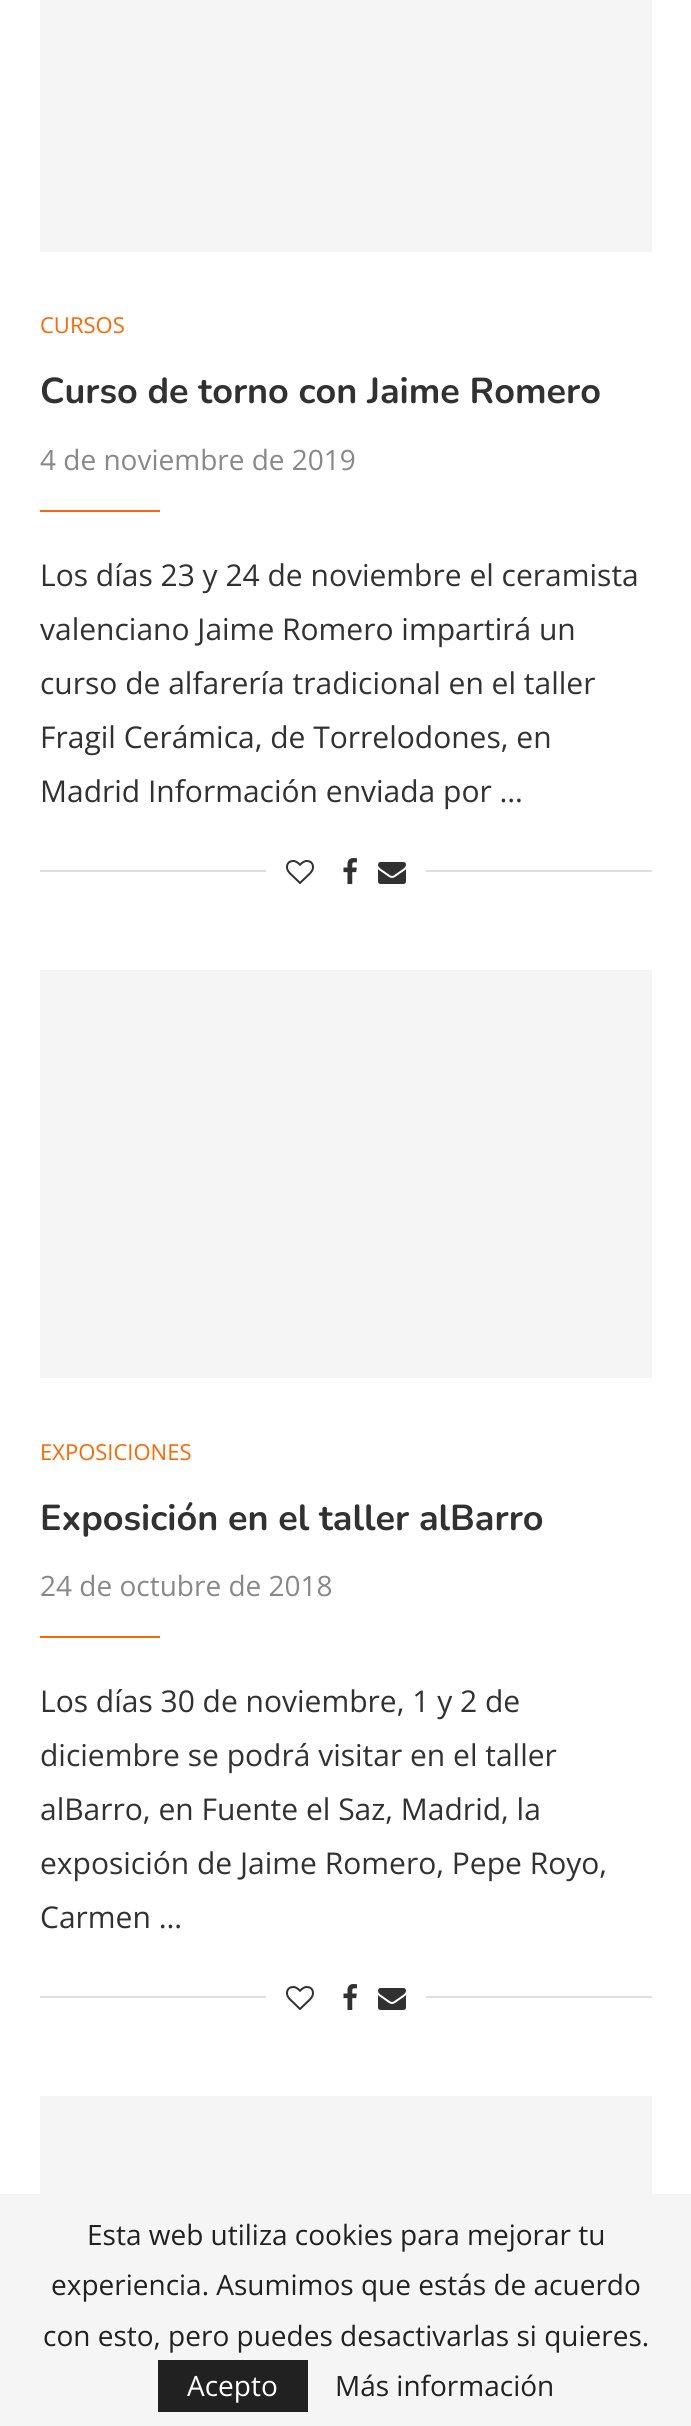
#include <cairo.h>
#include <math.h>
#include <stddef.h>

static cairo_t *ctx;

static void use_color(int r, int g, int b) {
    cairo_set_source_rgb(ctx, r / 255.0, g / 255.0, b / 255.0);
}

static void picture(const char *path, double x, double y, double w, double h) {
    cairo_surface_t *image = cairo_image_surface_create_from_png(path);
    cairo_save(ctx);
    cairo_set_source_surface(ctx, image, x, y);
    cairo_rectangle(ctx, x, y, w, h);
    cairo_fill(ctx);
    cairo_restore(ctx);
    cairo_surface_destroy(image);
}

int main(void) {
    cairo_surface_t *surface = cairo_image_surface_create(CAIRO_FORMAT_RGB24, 691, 2426);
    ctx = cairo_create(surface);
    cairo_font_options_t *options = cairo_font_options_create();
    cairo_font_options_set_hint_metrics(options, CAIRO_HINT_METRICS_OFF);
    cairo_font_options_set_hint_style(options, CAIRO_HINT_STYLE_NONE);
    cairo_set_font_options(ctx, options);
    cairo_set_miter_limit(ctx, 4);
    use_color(255, 255, 255);
    cairo_paint(ctx);
    use_color(245, 245, 245);
    cairo_rectangle(ctx, 40, 0, 612, 252);
    cairo_fill(ctx);
    cairo_select_font_face(ctx, "Open Sans", CAIRO_FONT_SLANT_NORMAL, CAIRO_FONT_WEIGHT_NORMAL);
    cairo_set_font_size(ctx, 22);
    use_color(255, 102, 0);
    cairo_move_to(ctx, 40, 333);
    cairo_show_text(ctx, "CURSOS");
    cairo_select_font_face(ctx, "Nunito", CAIRO_FONT_SLANT_NORMAL, CAIRO_FONT_WEIGHT_BOLD);
    cairo_set_font_size(ctx, 36);
    use_color(49, 49, 49);
    cairo_move_to(ctx, 40, 403);
    cairo_show_text(ctx, "Curso de torno con Jaime Romero");
    cairo_select_font_face(ctx, "Open Sans", CAIRO_FONT_SLANT_NORMAL, CAIRO_FONT_WEIGHT_NORMAL);
    cairo_set_font_size(ctx, 28);
    use_color(136, 136, 136);
    cairo_move_to(ctx, 40, 470);
    cairo_show_text(ctx, "4 de noviembre de 2019");
    use_color(255, 102, 0);
    cairo_rectangle(ctx, 40, 510, 120, 2);
    cairo_fill(ctx);
    cairo_set_font_size(ctx, 30);
    use_color(49, 49, 49);
    cairo_move_to(ctx, 40, 586);
    cairo_show_text(ctx, "Los días 23 y 24 de noviembre el ceramista");
    cairo_move_to(ctx, 40, 640);
    cairo_show_text(ctx, "valenciano Jaime Romero impartirá un");
    cairo_move_to(ctx, 40, 694);
    cairo_show_text(ctx, "curso de alfarería tradicional en el taller");
    cairo_move_to(ctx, 40, 748);
    cairo_show_text(ctx, "Fragil Cerámica, de Torrelodones, en");
    cairo_move_to(ctx, 40, 802);
    cairo_show_text(ctx, "Madrid Información enviada por …");
    use_color(222, 222, 222);
    cairo_rectangle(ctx, 40, 870, 612, 2);
    cairo_fill(ctx);
    use_color(255, 255, 255);
    cairo_rectangle(ctx, 266, 870, 160, 2);
    cairo_fill(ctx);
    picture("img1.png", 286, 860, 28, 24);
    picture("img2.png", 343, 858, 14, 26);
    picture("img3.png", 378, 862, 28, 22);
    use_color(245, 245, 245);
    cairo_rectangle(ctx, 40, 970, 612, 408);
    cairo_fill(ctx);
    cairo_set_font_size(ctx, 22);
    use_color(255, 102, 0);
    cairo_move_to(ctx, 40, 1460);
    cairo_show_text(ctx, "EXPOSICIONES");
    cairo_select_font_face(ctx, "Nunito", CAIRO_FONT_SLANT_NORMAL, CAIRO_FONT_WEIGHT_BOLD);
    cairo_set_font_size(ctx, 36);
    use_color(49, 49, 49);
    cairo_move_to(ctx, 40, 1530);
    cairo_show_text(ctx, "Exposición en el taller alBarro");
    cairo_select_font_face(ctx, "Open Sans", CAIRO_FONT_SLANT_NORMAL, CAIRO_FONT_WEIGHT_NORMAL);
    cairo_set_font_size(ctx, 28);
    use_color(136, 136, 136);
    cairo_move_to(ctx, 40, 1596);
    cairo_show_text(ctx, "24 de octubre de 2018");
    use_color(255, 102, 0);
    cairo_rectangle(ctx, 40, 1636, 120, 2);
    cairo_fill(ctx);
    cairo_set_font_size(ctx, 30);
    use_color(49, 49, 49);
    cairo_move_to(ctx, 40, 1712);
    cairo_show_text(ctx, "Los días 30 de noviembre, 1 y 2 de");
    cairo_move_to(ctx, 40, 1766);
    cairo_show_text(ctx, "diciembre se podrá visitar en el taller");
    cairo_move_to(ctx, 40, 1820);
    cairo_show_text(ctx, "alBarro, en Fuente el Saz, Madrid, la");
    cairo_move_to(ctx, 40, 1874);
    cairo_show_text(ctx, "exposición de Jaime Romero, Pepe Royo,");
    cairo_move_to(ctx, 40, 1928);
    cairo_show_text(ctx, "Carmen …");
    use_color(222, 222, 222);
    cairo_rectangle(ctx, 40, 1996, 612, 2);
    cairo_fill(ctx);
    use_color(255, 255, 255);
    cairo_rectangle(ctx, 266, 1996, 160, 2);
    cairo_fill(ctx);
    picture("img1.png", 286, 1986, 28, 24);
    picture("img2.png", 343, 1984, 14, 26);
    picture("img3.png", 378, 1988, 28, 22);
    use_color(245, 245, 245);
    cairo_rectangle(ctx, 40, 2096, 612, 98);
    cairo_fill(ctx);
    cairo_rectangle(ctx, 0, 2194, 691, 232);
    cairo_fill(ctx);
    cairo_set_font_size(ctx, 28);
    use_color(33, 33, 33);
    cairo_move_to(ctx, 87, 2245);
    cairo_show_text(ctx, "Esta web utiliza cookies para mejorar tu");
    cairo_move_to(ctx, 51, 2295);
    cairo_show_text(ctx, "experiencia. Asumimos que estás de acuerdo");
    cairo_move_to(ctx, 43, 2346);
    cairo_show_text(ctx, "con esto, pero puedes desactivarlas si quieres.");
    cairo_rectangle(ctx, 158, 2360, 150, 52);
    cairo_fill(ctx);
    use_color(255, 255, 255);
    cairo_move_to(ctx, 187, 2396);
    cairo_show_text(ctx, "Acepto");
    use_color(33, 33, 33);
    cairo_move_to(ctx, 335, 2396);
    cairo_show_text(ctx, "Más información");
    cairo_surface_write_to_png(surface, "result.png");
    cairo_font_options_destroy(options);
    cairo_destroy(ctx);
    cairo_surface_destroy(surface);
    return 0;
}
